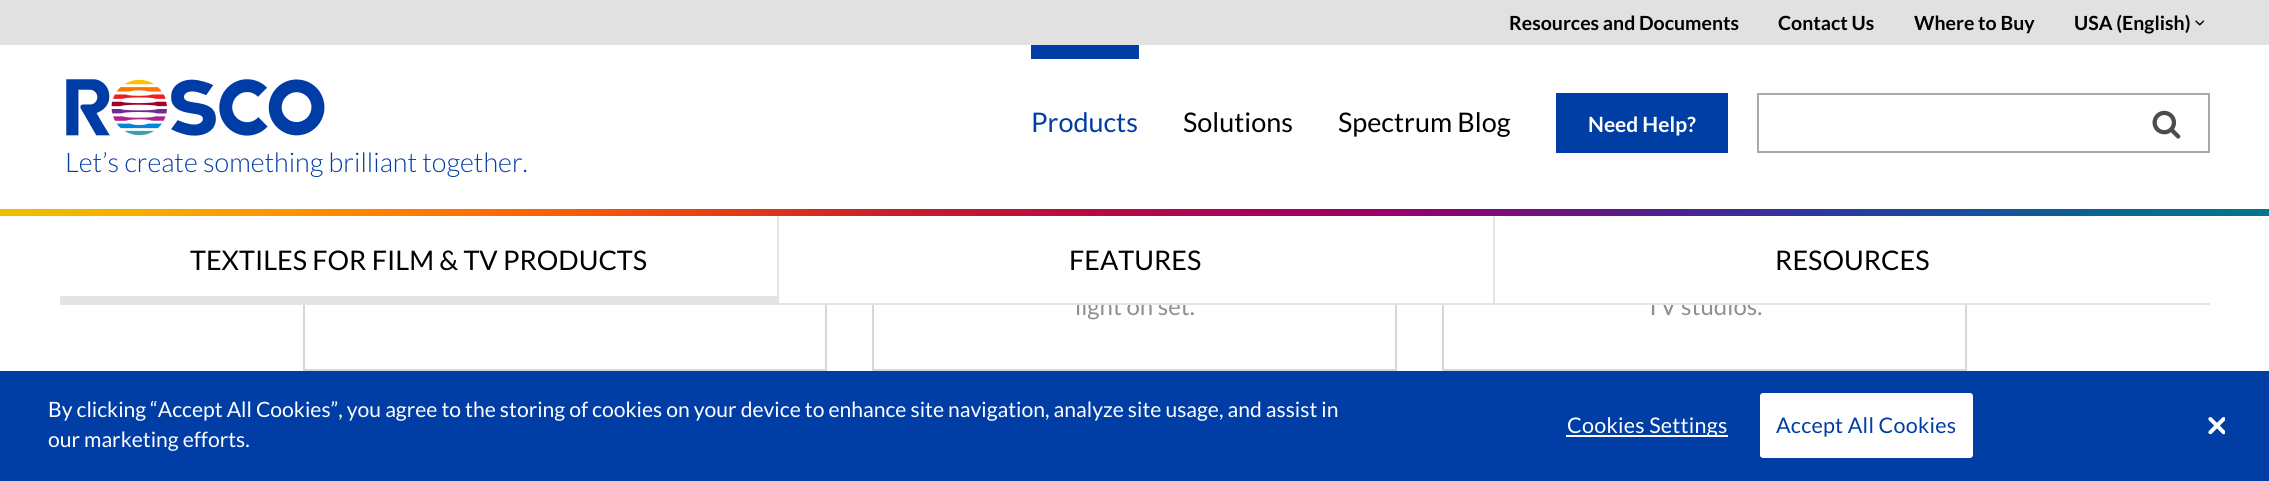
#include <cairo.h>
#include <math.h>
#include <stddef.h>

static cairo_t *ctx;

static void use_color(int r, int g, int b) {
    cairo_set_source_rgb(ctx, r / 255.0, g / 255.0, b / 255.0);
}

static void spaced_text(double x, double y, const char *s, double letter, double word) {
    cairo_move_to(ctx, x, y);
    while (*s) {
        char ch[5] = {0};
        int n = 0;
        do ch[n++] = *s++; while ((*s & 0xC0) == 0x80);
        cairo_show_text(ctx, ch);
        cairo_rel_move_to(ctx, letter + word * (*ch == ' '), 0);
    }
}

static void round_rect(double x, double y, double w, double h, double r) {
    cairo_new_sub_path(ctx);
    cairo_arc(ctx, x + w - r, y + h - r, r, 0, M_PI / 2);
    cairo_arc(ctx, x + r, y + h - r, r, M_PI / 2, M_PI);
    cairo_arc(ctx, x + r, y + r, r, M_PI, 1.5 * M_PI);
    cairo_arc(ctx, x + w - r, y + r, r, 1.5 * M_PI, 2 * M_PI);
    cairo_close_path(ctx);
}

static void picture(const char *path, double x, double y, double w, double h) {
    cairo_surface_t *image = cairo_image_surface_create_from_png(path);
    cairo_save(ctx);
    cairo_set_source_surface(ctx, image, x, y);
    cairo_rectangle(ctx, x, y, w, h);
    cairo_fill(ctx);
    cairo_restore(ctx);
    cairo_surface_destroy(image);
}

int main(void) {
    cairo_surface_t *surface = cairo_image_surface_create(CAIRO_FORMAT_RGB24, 2269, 481);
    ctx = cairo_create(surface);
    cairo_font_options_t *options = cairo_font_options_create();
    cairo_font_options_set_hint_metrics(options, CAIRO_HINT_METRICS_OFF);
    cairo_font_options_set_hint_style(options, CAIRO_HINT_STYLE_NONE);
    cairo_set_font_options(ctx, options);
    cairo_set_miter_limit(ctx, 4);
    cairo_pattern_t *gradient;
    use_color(255, 255, 255);
    cairo_paint(ctx);
    cairo_rectangle(ctx, 304, -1, 522, 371);
    use_color(215, 215, 215);
    cairo_stroke(ctx);
    cairo_rectangle(ctx, 873, -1, 523, 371);
    cairo_stroke(ctx);
    cairo_rectangle(ctx, 1443, -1, 523, 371);
    cairo_stroke(ctx);
    use_color(255, 255, 255);
    cairo_rectangle(ctx, 303, 45, 1664, 164);
    cairo_fill(ctx);
    use_color(225, 225, 225);
    cairo_rectangle(ctx, 0, 0, 2269, 45);
    cairo_fill(ctx);
    cairo_select_font_face(ctx, "Lato", CAIRO_FONT_SLANT_NORMAL, CAIRO_FONT_WEIGHT_BOLD);
    cairo_set_font_size(ctx, 19.5);
    use_color(0, 0, 0);
    cairo_move_to(ctx, 1509, 30);
    cairo_show_text(ctx, "Resources and Documents");
    cairo_move_to(ctx, 1778, 30);
    cairo_show_text(ctx, "Contact Us");
    cairo_move_to(ctx, 1914, 30);
    cairo_show_text(ctx, "Where to Buy");
    cairo_move_to(ctx, 2074, 30);
    cairo_show_text(ctx, "USA (English)");
    picture("img1.png", 2195, 20, 10, 6);
    use_color(0, 61, 165);
    cairo_rectangle(ctx, 1031, 45, 108, 14);
    cairo_fill(ctx);
    cairo_select_font_face(ctx, "Lato", CAIRO_FONT_SLANT_NORMAL, CAIRO_FONT_WEIGHT_NORMAL);
    cairo_set_font_size(ctx, 27);
    cairo_move_to(ctx, 1031, 132);
    cairo_show_text(ctx, "Products");
    use_color(0, 0, 0);
    cairo_move_to(ctx, 1183, 132);
    cairo_show_text(ctx, "Solutions");
    cairo_move_to(ctx, 1338, 132);
    cairo_show_text(ctx, "Spectrum Blog");
    use_color(0, 61, 165);
    cairo_rectangle(ctx, 1556, 93, 172, 60);
    cairo_fill(ctx);
    cairo_select_font_face(ctx, "Lato", CAIRO_FONT_SLANT_NORMAL, CAIRO_FONT_WEIGHT_BOLD);
    cairo_set_font_size(ctx, 21);
    use_color(255, 255, 255);
    cairo_move_to(ctx, 1588, 132);
    cairo_show_text(ctx, "Need Help?");
    cairo_rectangle(ctx, 1758, 94, 451, 58);
    use_color(169, 169, 169);
    cairo_stroke(ctx);
    picture("img2.png", 2152, 110, 29, 29);
    picture("img3.png", 66, 79, 259, 57);
    cairo_select_font_face(ctx, "Lato Light", CAIRO_FONT_SLANT_NORMAL, CAIRO_FONT_WEIGHT_NORMAL);
    cairo_set_font_size(ctx, 27);
    use_color(0, 61, 165);
    cairo_move_to(ctx, 65, 172);
    cairo_show_text(ctx, "Let’s create something brilliant together.");
    gradient = cairo_pattern_create_linear(0, 209, 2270, 209);
    cairo_pattern_add_color_stop_rgba(gradient, 0, 0.941, 0.745, 0, 1);
    cairo_pattern_add_color_stop_rgba(gradient, 0.06, 0.961, 0.686, 0, 1);
    cairo_pattern_add_color_stop_rgba(gradient, 0.13, 1, 0.573, 0, 1);
    cairo_pattern_add_color_stop_rgba(gradient, 0.21, 0.996, 0.435, 0.012, 1);
    cairo_pattern_add_color_stop_rgba(gradient, 0.29, 0.918, 0.298, 0.063, 1);
    cairo_pattern_add_color_stop_rgba(gradient, 0.35, 0.835, 0.196, 0.114, 1);
    cairo_pattern_add_color_stop_rgba(gradient, 0.39, 0.776, 0.125, 0.165, 1);
    cairo_pattern_add_color_stop_rgba(gradient, 0.47, 0.722, 0.051, 0.243, 1);
    cairo_pattern_add_color_stop_rgba(gradient, 0.55, 0.667, 0, 0.353, 1);
    cairo_pattern_add_color_stop_rgba(gradient, 0.61, 0.6, 0, 0.416, 1);
    cairo_pattern_add_color_stop_rgba(gradient, 0.64, 0.537, 0.02, 0.455, 1);
    cairo_pattern_add_color_stop_rgba(gradient, 0.74, 0.302, 0.133, 0.565, 1);
    cairo_pattern_add_color_stop_rgba(gradient, 0.8, 0.176, 0.216, 0.608, 1);
    cairo_pattern_add_color_stop_rgba(gradient, 0.87, 0.082, 0.314, 0.608, 1);
    cairo_pattern_add_color_stop_rgba(gradient, 0.95, 0.024, 0.416, 0.573, 1);
    cairo_pattern_add_color_stop_rgba(gradient, 1, 0, 0.459, 0.557, 1);
    cairo_set_source(ctx, gradient);
    cairo_pattern_destroy(gradient);
    cairo_rectangle(ctx, 0, 209, 2269, 7);
    cairo_fill(ctx);
    cairo_select_font_face(ctx, "Lato", CAIRO_FONT_SLANT_NORMAL, CAIRO_FONT_WEIGHT_NORMAL);
    cairo_set_font_size(ctx, 24);
    use_color(143, 143, 143);
    cairo_move_to(ctx, 1075, 315);
    cairo_show_text(ctx, "light on set.");
    cairo_move_to(ctx, 1646, 315);
    cairo_show_text(ctx, "TV studios.");
    use_color(255, 255, 255);
    cairo_rectangle(ctx, 303, 216, 1664, 89);
    cairo_fill(ctx);
    use_color(228, 228, 228);
    cairo_rectangle(ctx, 60, 303, 2150, 2);
    cairo_fill(ctx);
    cairo_rectangle(ctx, 60, 296, 717, 7);
    cairo_fill(ctx);
    cairo_set_font_size(ctx, 27);
    use_color(0, 0, 0);
    cairo_move_to(ctx, 190, 270);
    cairo_show_text(ctx, "TEXTILES FOR FILM & TV PRODUCTS");
    use_color(228, 228, 228);
    cairo_rectangle(ctx, 777, 216, 2, 87);
    cairo_fill(ctx);
    use_color(0, 0, 0);
    cairo_move_to(ctx, 1069, 270);
    cairo_show_text(ctx, "FEATURES");
    use_color(228, 228, 228);
    cairo_rectangle(ctx, 1493, 216, 2, 87);
    cairo_fill(ctx);
    use_color(0, 0, 0);
    cairo_move_to(ctx, 1775, 270);
    cairo_show_text(ctx, "RESOURCES");
    use_color(0, 61, 165);
    cairo_rectangle(ctx, 0, 371, 2269, 110);
    cairo_fill(ctx);
    cairo_set_font_size(ctx, 21.12);
    use_color(255, 255, 255);
    cairo_move_to(ctx, 48, 417);
    cairo_show_text(ctx, "By clicking “Accept All Cookies”, you agree to the storing of cookies on your device to enhance site navigation, analyze site usage, and assist in");
    cairo_move_to(ctx, 48, 447);
    cairo_show_text(ctx, "our marketing efforts.");
    cairo_rectangle(ctx, 1566, 435, 162, 2);
    cairo_fill(ctx);
    cairo_set_font_size(ctx, 21.5);
    spaced_text(1567, 433, "Cookies Settings", 0.25, 0);
    round_rect(1761, 394, 211, 63, 2);
    cairo_fill_preserve(ctx);
    cairo_stroke(ctx);
    use_color(0, 61, 165);
    spaced_text(1776, 433, "Accept All Cookies", 0.25, 0);
    picture("img4.png", 2208, 417, 17, 18);
    cairo_surface_write_to_png(surface, "result.png");
    cairo_font_options_destroy(options);
    cairo_destroy(ctx);
    cairo_surface_destroy(surface);
    return 0;
}
